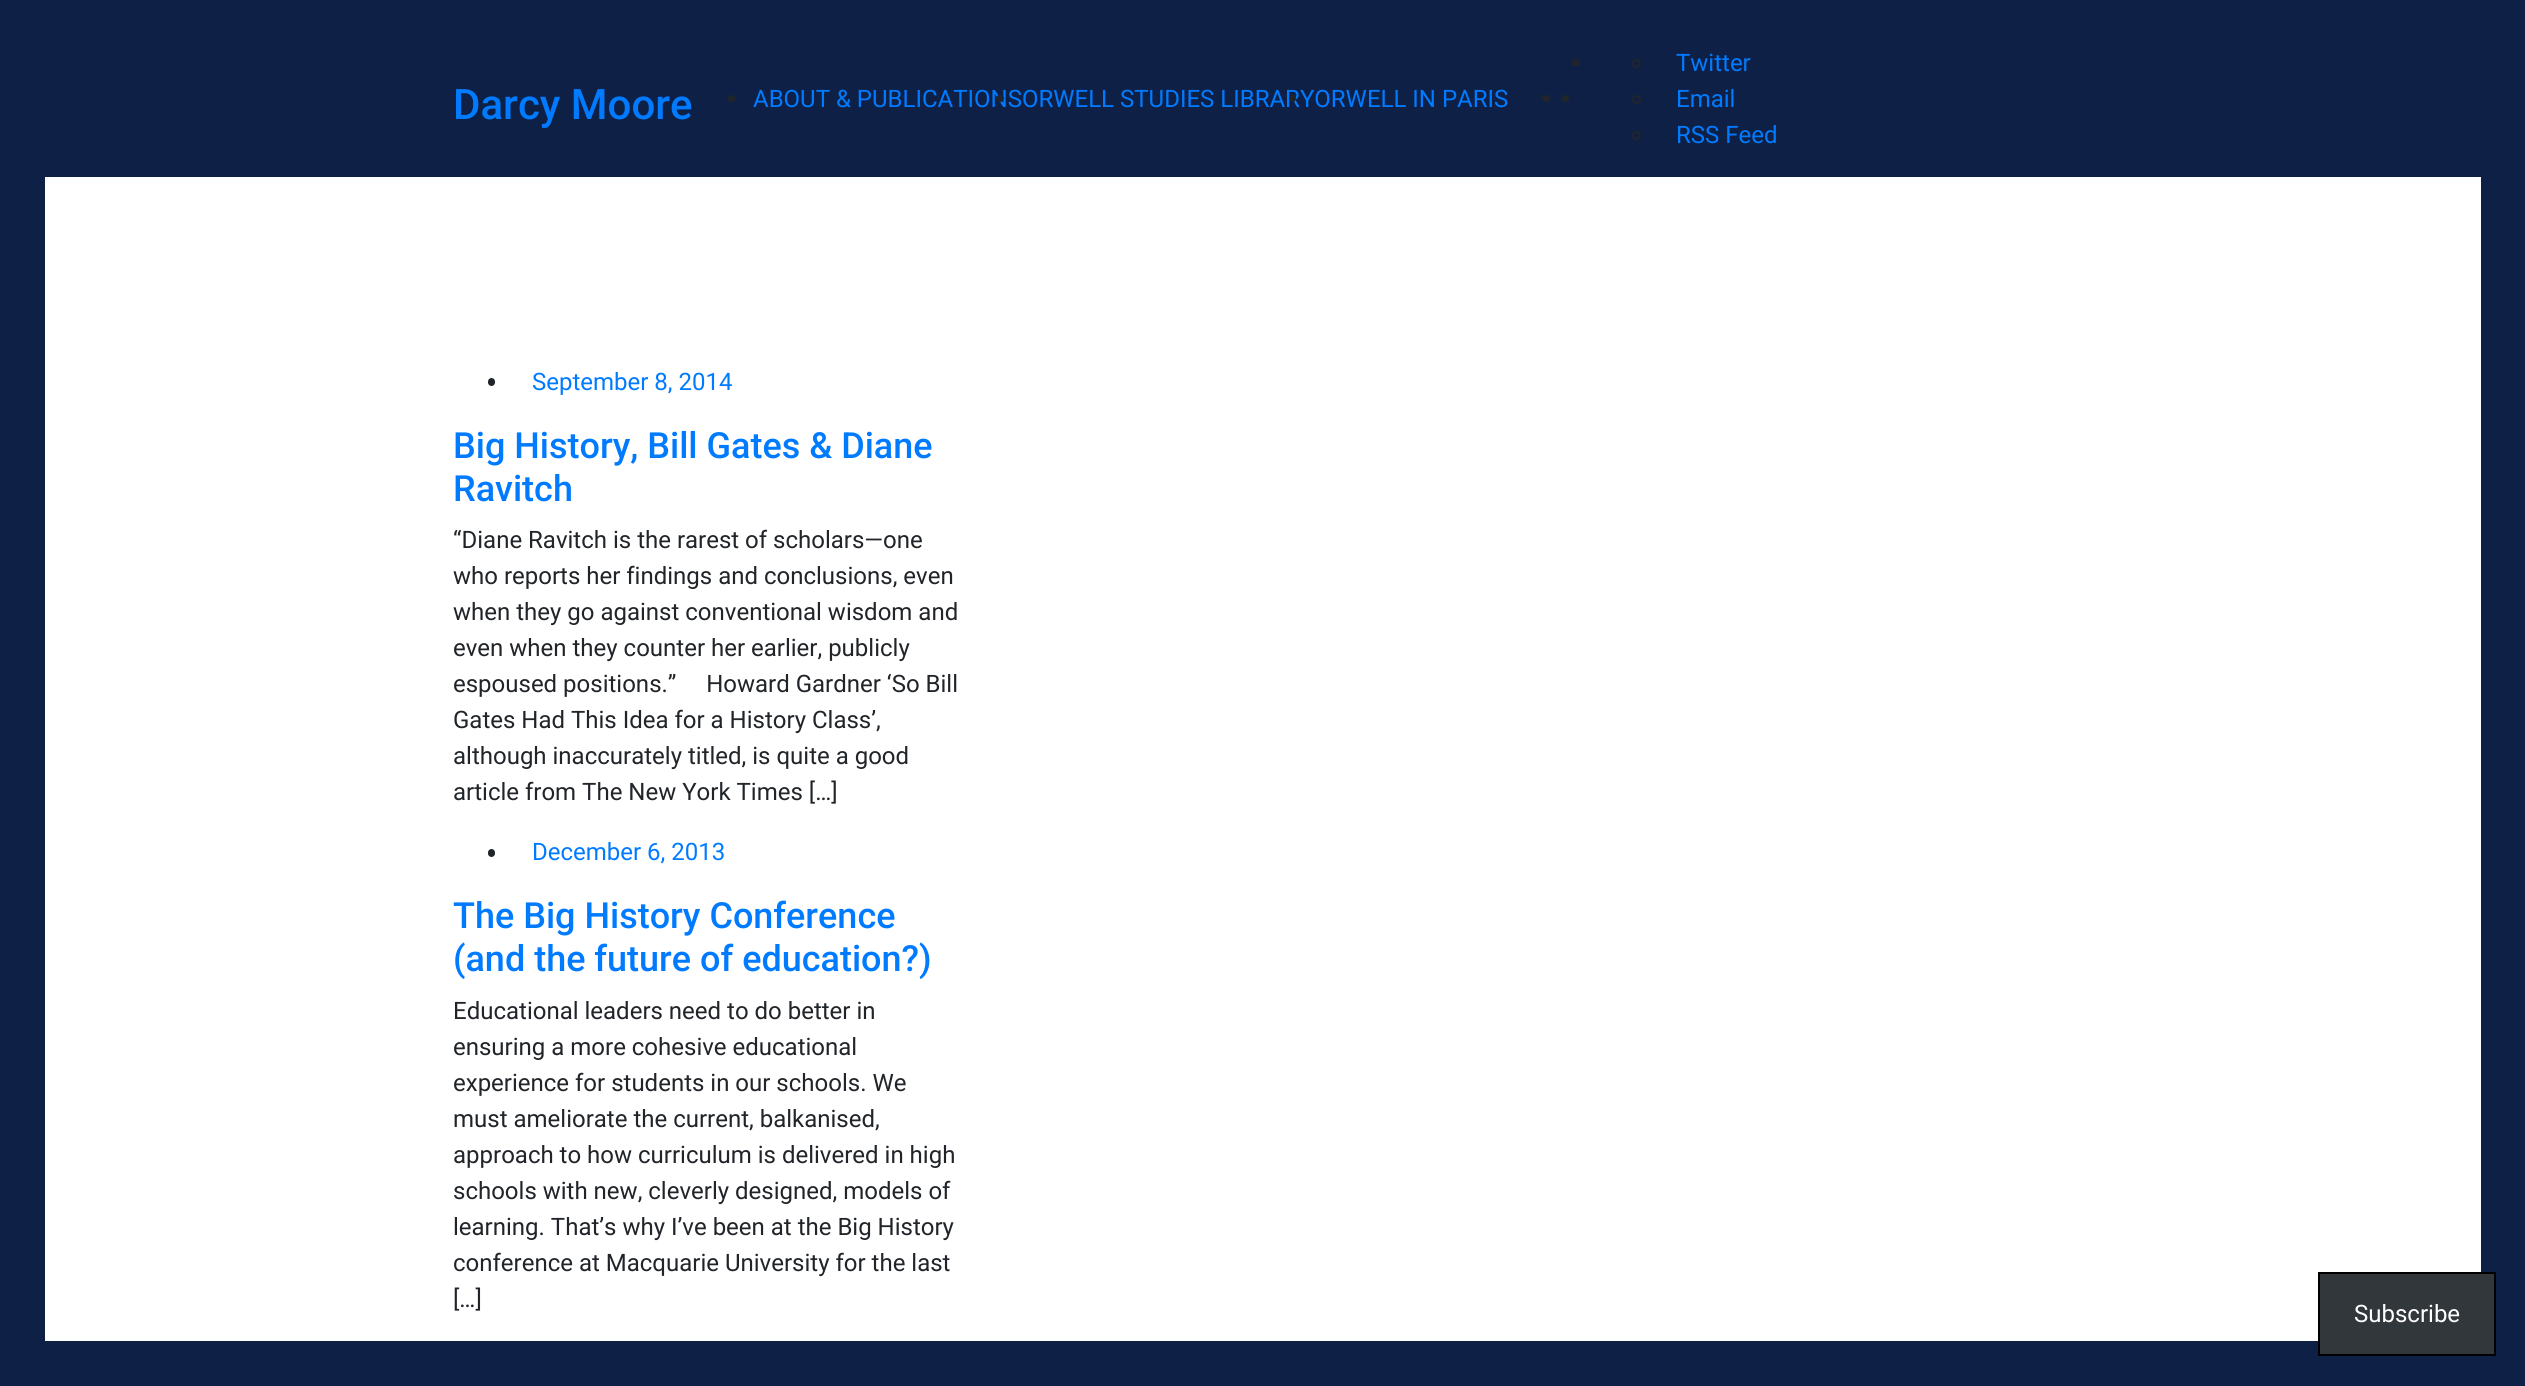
#include <cairo.h>
#include <math.h>
#include <stddef.h>

static cairo_t *ctx;

static void use_color(int r, int g, int b) {
    cairo_set_source_rgb(ctx, r / 255.0, g / 255.0, b / 255.0);
}

static void round_rect(double x, double y, double w, double h, double r) {
    cairo_new_sub_path(ctx);
    cairo_arc(ctx, x + w - r, y + h - r, r, 0, M_PI / 2);
    cairo_arc(ctx, x + r, y + h - r, r, M_PI / 2, M_PI);
    cairo_arc(ctx, x + r, y + r, r, M_PI, 1.5 * M_PI);
    cairo_arc(ctx, x + w - r, y + r, r, 1.5 * M_PI, 2 * M_PI);
    cairo_close_path(ctx);
}

int main(void) {
    cairo_surface_t *surface = cairo_image_surface_create(CAIRO_FORMAT_RGB24, 2525, 1386);
    ctx = cairo_create(surface);
    cairo_font_options_t *options = cairo_font_options_create();
    cairo_font_options_set_hint_metrics(options, CAIRO_HINT_METRICS_OFF);
    cairo_font_options_set_hint_style(options, CAIRO_HINT_STYLE_NONE);
    cairo_set_font_options(ctx, options);
    cairo_set_miter_limit(ctx, 4);
    use_color(15, 32, 71);
    cairo_paint(ctx);
    use_color(255, 255, 255);
    cairo_rectangle(ctx, 45, 177, 2436, 1164);
    cairo_fill(ctx);
    cairo_select_font_face(ctx, "Roboto Medium", CAIRO_FONT_SLANT_NORMAL, CAIRO_FONT_WEIGHT_NORMAL);
    cairo_set_font_size(ctx, 42);
    use_color(0, 123, 255);
    cairo_move_to(ctx, 453, 119);
    cairo_show_text(ctx, "Darcy Moore");
    use_color(33, 37, 41);
    cairo_new_path(ctx);
    cairo_arc(ctx, 731.5, 98.5, 3.5, 0, 2 * M_PI);
    cairo_fill(ctx);
    cairo_select_font_face(ctx, "Roboto", CAIRO_FONT_SLANT_NORMAL, CAIRO_FONT_WEIGHT_NORMAL);
    cairo_set_font_size(ctx, 24);
    use_color(0, 123, 255);
    cairo_move_to(ctx, 753, 107);
    cairo_show_text(ctx, "ABOUT & PUBLICATIONSORWELL STUDIES LIBRARYORWELL IN PARIS");
    use_color(33, 37, 41);
    round_rect(996, 95, 8, 7, 3.5);
    cairo_fill(ctx);
    cairo_arc(ctx, 1292.5, 98.5, 3.5, 0, 2 * M_PI);
    cairo_fill(ctx);
    round_rect(1542, 95, 8, 7, 3.5);
    cairo_fill(ctx);
    cairo_arc(ctx, 1565.5, 98.5, 3.5, 0, 2 * M_PI);
    cairo_fill(ctx);
    round_rect(1572, 59, 8, 7, 3.5);
    cairo_fill(ctx);
    cairo_arc(ctx, 1636.5, 63.5, 3.5, 0, 2 * M_PI);
    cairo_stroke(ctx);
    use_color(0, 123, 255);
    cairo_move_to(ctx, 1676, 71);
    cairo_show_text(ctx, "Twitter");
    cairo_new_path(ctx);
    cairo_arc(ctx, 1636.5, 99.5, 3.5, 0, 2 * M_PI);
    use_color(33, 37, 41);
    cairo_stroke(ctx);
    use_color(0, 123, 255);
    cairo_move_to(ctx, 1676, 107);
    cairo_show_text(ctx, "Email");
    cairo_new_path(ctx);
    cairo_arc(ctx, 1636.5, 135.5, 3.5, 0, 2 * M_PI);
    use_color(33, 37, 41);
    cairo_stroke(ctx);
    use_color(0, 123, 255);
    cairo_move_to(ctx, 1676, 143);
    cairo_show_text(ctx, "RSS Feed");
    use_color(33, 37, 41);
    round_rect(488, 378, 7, 8, 3.5);
    cairo_fill(ctx);
    use_color(0, 123, 255);
    cairo_move_to(ctx, 532, 390);
    cairo_show_text(ctx, "September 8, 2014");
    cairo_select_font_face(ctx, "Roboto Medium", CAIRO_FONT_SLANT_NORMAL, CAIRO_FONT_WEIGHT_NORMAL);
    cairo_set_font_size(ctx, 36);
    cairo_move_to(ctx, 453, 458);
    cairo_show_text(ctx, "Big History, Bill Gates & Diane");
    cairo_move_to(ctx, 453, 501);
    cairo_show_text(ctx, "Ravitch");
    cairo_select_font_face(ctx, "Roboto", CAIRO_FONT_SLANT_NORMAL, CAIRO_FONT_WEIGHT_NORMAL);
    cairo_set_font_size(ctx, 24);
    use_color(33, 37, 41);
    cairo_move_to(ctx, 453, 548);
    cairo_show_text(ctx, "“Diane Ravitch is the rarest of scholars—one");
    cairo_move_to(ctx, 453, 584);
    cairo_show_text(ctx, "who reports her findings and conclusions, even");
    cairo_move_to(ctx, 453, 620);
    cairo_show_text(ctx, "when they go against conventional wisdom and");
    cairo_move_to(ctx, 453, 656);
    cairo_show_text(ctx, "even when they counter her earlier, publicly");
    cairo_move_to(ctx, 453, 692);
    cairo_show_text(ctx, "espoused positions.”     Howard Gardner ‘So Bill");
    cairo_move_to(ctx, 453, 728);
    cairo_show_text(ctx, "Gates Had This Idea for a History Class’,");
    cairo_move_to(ctx, 453, 764);
    cairo_show_text(ctx, "although inaccurately titled, is quite a good");
    cairo_move_to(ctx, 453, 800);
    cairo_show_text(ctx, "article from The New York Times […]");
    round_rect(488, 849, 7, 8, 3.5);
    cairo_fill(ctx);
    use_color(0, 123, 255);
    cairo_move_to(ctx, 532, 860);
    cairo_show_text(ctx, "December 6, 2013");
    cairo_select_font_face(ctx, "Roboto Medium", CAIRO_FONT_SLANT_NORMAL, CAIRO_FONT_WEIGHT_NORMAL);
    cairo_set_font_size(ctx, 36);
    cairo_move_to(ctx, 453, 928);
    cairo_show_text(ctx, "The Big History Conference");
    cairo_move_to(ctx, 453, 971);
    cairo_show_text(ctx, "(and the future of education?)");
    cairo_select_font_face(ctx, "Roboto", CAIRO_FONT_SLANT_NORMAL, CAIRO_FONT_WEIGHT_NORMAL);
    cairo_set_font_size(ctx, 24);
    use_color(33, 37, 41);
    cairo_move_to(ctx, 453, 1019);
    cairo_show_text(ctx, "Educational leaders need to do better in");
    cairo_move_to(ctx, 453, 1055);
    cairo_show_text(ctx, "ensuring a more cohesive educational");
    cairo_move_to(ctx, 453, 1091);
    cairo_show_text(ctx, "experience for students in our schools. We");
    cairo_move_to(ctx, 453, 1127);
    cairo_show_text(ctx, "must ameliorate the current, balkanised,");
    cairo_move_to(ctx, 453, 1163);
    cairo_show_text(ctx, "approach to how curriculum is delivered in high");
    cairo_move_to(ctx, 453, 1199);
    cairo_show_text(ctx, "schools with new, cleverly designed, models of");
    cairo_move_to(ctx, 453, 1235);
    cairo_show_text(ctx, "learning. That’s why I’ve been at the Big History");
    cairo_move_to(ctx, 453, 1271);
    cairo_show_text(ctx, "conference at Macquarie University for the last");
    cairo_move_to(ctx, 453, 1307);
    cairo_show_text(ctx, "[…]");
    use_color(50, 55, 60);
    cairo_rectangle(ctx, 2319, 1273, 176, 82);
    cairo_fill_preserve(ctx);
    use_color(0, 0, 0);
    cairo_stroke(ctx);
    use_color(255, 255, 255);
    cairo_move_to(ctx, 2354, 1322);
    cairo_show_text(ctx, "Subscribe");
    cairo_surface_write_to_png(surface, "result.png");
    cairo_font_options_destroy(options);
    cairo_destroy(ctx);
    cairo_surface_destroy(surface);
    return 0;
}
